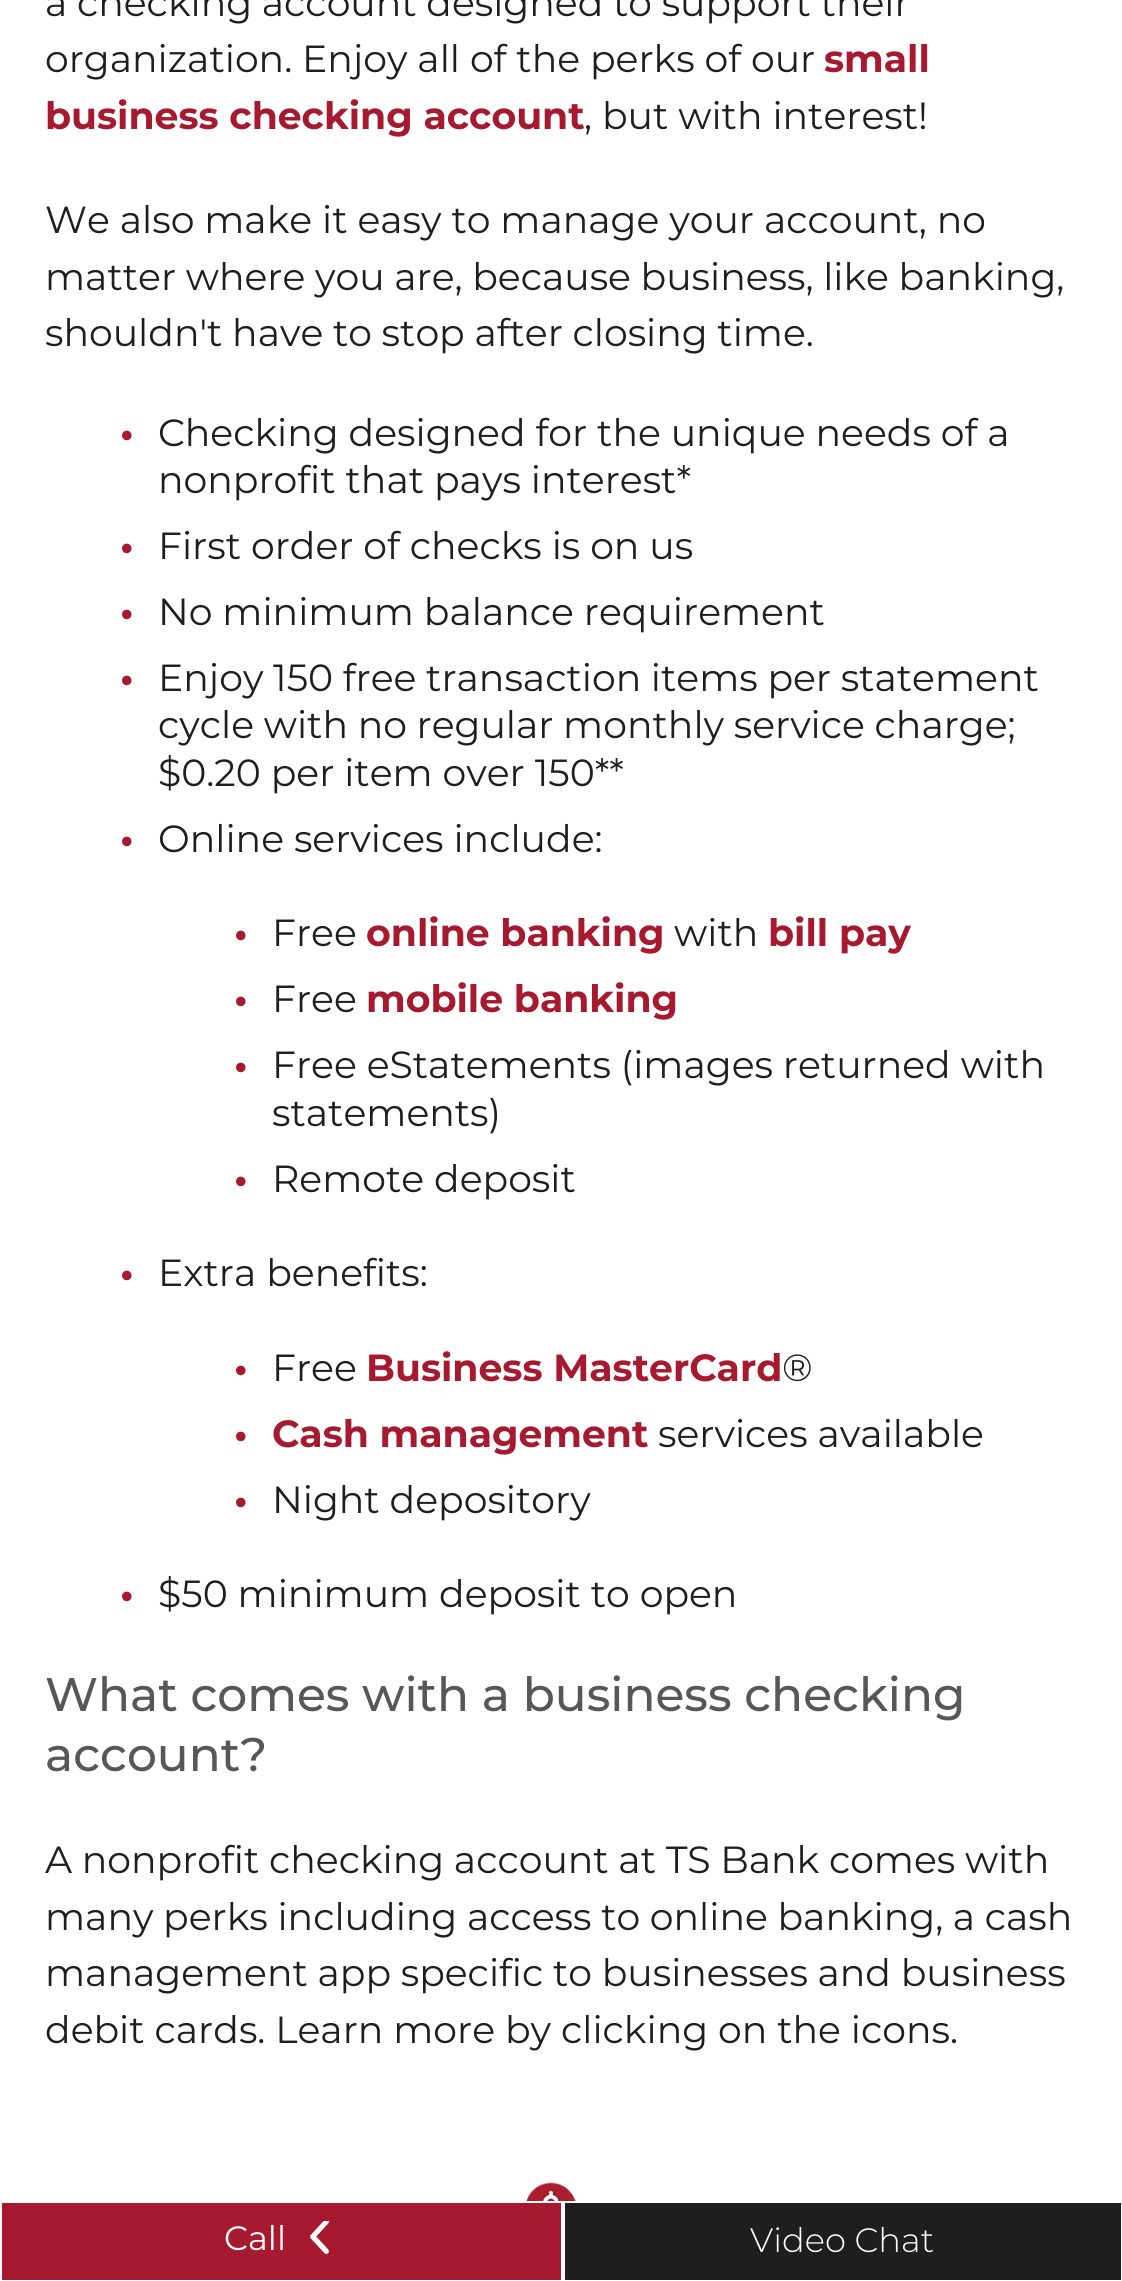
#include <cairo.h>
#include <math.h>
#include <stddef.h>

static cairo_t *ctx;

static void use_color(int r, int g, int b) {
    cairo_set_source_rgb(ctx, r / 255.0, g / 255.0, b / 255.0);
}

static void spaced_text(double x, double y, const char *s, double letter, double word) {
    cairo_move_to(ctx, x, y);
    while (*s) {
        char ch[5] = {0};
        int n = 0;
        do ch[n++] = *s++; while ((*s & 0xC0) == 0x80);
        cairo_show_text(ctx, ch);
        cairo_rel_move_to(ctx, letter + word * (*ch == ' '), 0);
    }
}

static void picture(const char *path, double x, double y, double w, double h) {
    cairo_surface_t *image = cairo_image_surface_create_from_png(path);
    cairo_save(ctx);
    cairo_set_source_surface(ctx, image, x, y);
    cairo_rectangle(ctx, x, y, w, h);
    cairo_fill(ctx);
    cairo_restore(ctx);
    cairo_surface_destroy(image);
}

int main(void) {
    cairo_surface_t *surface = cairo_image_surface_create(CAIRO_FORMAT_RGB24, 1122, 2281);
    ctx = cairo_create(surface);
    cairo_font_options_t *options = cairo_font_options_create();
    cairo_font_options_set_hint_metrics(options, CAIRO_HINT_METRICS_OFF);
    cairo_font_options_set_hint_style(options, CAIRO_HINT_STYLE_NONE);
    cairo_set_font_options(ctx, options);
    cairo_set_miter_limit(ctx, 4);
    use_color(255, 255, 255);
    cairo_paint(ctx);
    cairo_select_font_face(ctx, "Montserrat", CAIRO_FONT_SLANT_NORMAL, CAIRO_FONT_WEIGHT_NORMAL);
    cairo_set_font_size(ctx, 37.8);
    use_color(30, 30, 30);
    spaced_text(45, 16, "a checking account designed to support their", 0, -0.25);
    cairo_move_to(ctx, 45, 72);
    cairo_show_text(ctx, "organization. Enjoy all of the perks of our");
    cairo_select_font_face(ctx, "Montserrat", CAIRO_FONT_SLANT_NORMAL, CAIRO_FONT_WEIGHT_BOLD);
    use_color(166, 25, 46);
    cairo_move_to(ctx, 824, 72);
    cairo_show_text(ctx, "small");
    cairo_move_to(ctx, 45, 129);
    cairo_show_text(ctx, "business checking account");
    cairo_select_font_face(ctx, "Montserrat", CAIRO_FONT_SLANT_NORMAL, CAIRO_FONT_WEIGHT_NORMAL);
    use_color(30, 30, 30);
    cairo_move_to(ctx, 584, 129);
    cairo_show_text(ctx, ", but with interest!");
    cairo_move_to(ctx, 45, 233);
    cairo_show_text(ctx, "We also make it easy to manage your account, no");
    spaced_text(45, 290, "matter where you are, because business, like banking,", 0, -0.25);
    spaced_text(45, 346, "shouldn't have to stop after closing time.", 0, -0.25);
    cairo_select_font_face(ctx, "Montserrat", CAIRO_FONT_SLANT_NORMAL, CAIRO_FONT_WEIGHT_BOLD);
    use_color(166, 25, 46);
    cairo_move_to(ctx, 120, 446);
    cairo_show_text(ctx, "•");
    cairo_select_font_face(ctx, "Montserrat", CAIRO_FONT_SLANT_NORMAL, CAIRO_FONT_WEIGHT_NORMAL);
    use_color(30, 30, 30);
    cairo_move_to(ctx, 158, 446);
    cairo_show_text(ctx, "Checking designed for the unique needs of a");
    cairo_move_to(ctx, 158, 493);
    cairo_show_text(ctx, "nonprofit that pays interest*");
    cairo_select_font_face(ctx, "Montserrat", CAIRO_FONT_SLANT_NORMAL, CAIRO_FONT_WEIGHT_BOLD);
    use_color(166, 25, 46);
    cairo_move_to(ctx, 120, 559);
    cairo_show_text(ctx, "•");
    cairo_select_font_face(ctx, "Montserrat", CAIRO_FONT_SLANT_NORMAL, CAIRO_FONT_WEIGHT_NORMAL);
    use_color(30, 30, 30);
    cairo_move_to(ctx, 158, 559);
    cairo_show_text(ctx, "First order of checks is on us");
    cairo_select_font_face(ctx, "Montserrat", CAIRO_FONT_SLANT_NORMAL, CAIRO_FONT_WEIGHT_BOLD);
    use_color(166, 25, 46);
    cairo_move_to(ctx, 120, 625);
    cairo_show_text(ctx, "•");
    cairo_select_font_face(ctx, "Montserrat", CAIRO_FONT_SLANT_NORMAL, CAIRO_FONT_WEIGHT_NORMAL);
    use_color(30, 30, 30);
    cairo_move_to(ctx, 158, 625);
    cairo_show_text(ctx, "No minimum balance requirement");
    cairo_select_font_face(ctx, "Montserrat", CAIRO_FONT_SLANT_NORMAL, CAIRO_FONT_WEIGHT_BOLD);
    use_color(166, 25, 46);
    cairo_move_to(ctx, 120, 691);
    cairo_show_text(ctx, "•");
    cairo_select_font_face(ctx, "Montserrat", CAIRO_FONT_SLANT_NORMAL, CAIRO_FONT_WEIGHT_NORMAL);
    use_color(30, 30, 30);
    spaced_text(158, 691, "Enjoy 150 free transaction items per statement", 0, -0.25);
    spaced_text(158, 738, "cycle with no regular monthly service charge;", 0, -0.25);
    cairo_move_to(ctx, 158, 786);
    cairo_show_text(ctx, "$0.20 per item over 150**");
    cairo_select_font_face(ctx, "Montserrat", CAIRO_FONT_SLANT_NORMAL, CAIRO_FONT_WEIGHT_BOLD);
    use_color(166, 25, 46);
    cairo_move_to(ctx, 120, 852);
    cairo_show_text(ctx, "•");
    cairo_select_font_face(ctx, "Montserrat", CAIRO_FONT_SLANT_NORMAL, CAIRO_FONT_WEIGHT_NORMAL);
    use_color(30, 30, 30);
    cairo_move_to(ctx, 158, 852);
    cairo_show_text(ctx, "Online services include:");
    cairo_select_font_face(ctx, "Montserrat", CAIRO_FONT_SLANT_NORMAL, CAIRO_FONT_WEIGHT_BOLD);
    use_color(166, 25, 46);
    cairo_move_to(ctx, 234, 946);
    cairo_show_text(ctx, "•");
    cairo_select_font_face(ctx, "Montserrat", CAIRO_FONT_SLANT_NORMAL, CAIRO_FONT_WEIGHT_NORMAL);
    use_color(30, 30, 30);
    cairo_move_to(ctx, 272, 946);
    cairo_show_text(ctx, "Free");
    cairo_select_font_face(ctx, "Montserrat", CAIRO_FONT_SLANT_NORMAL, CAIRO_FONT_WEIGHT_BOLD);
    use_color(166, 25, 46);
    cairo_move_to(ctx, 366, 946);
    cairo_show_text(ctx, "online banking");
    cairo_select_font_face(ctx, "Montserrat", CAIRO_FONT_SLANT_NORMAL, CAIRO_FONT_WEIGHT_NORMAL);
    use_color(30, 30, 30);
    cairo_move_to(ctx, 674, 946);
    cairo_show_text(ctx, "with");
    cairo_select_font_face(ctx, "Montserrat", CAIRO_FONT_SLANT_NORMAL, CAIRO_FONT_WEIGHT_BOLD);
    use_color(166, 25, 46);
    cairo_move_to(ctx, 768, 946);
    cairo_show_text(ctx, "bill pay");
    cairo_move_to(ctx, 234, 1012);
    cairo_show_text(ctx, "•");
    cairo_select_font_face(ctx, "Montserrat", CAIRO_FONT_SLANT_NORMAL, CAIRO_FONT_WEIGHT_NORMAL);
    use_color(30, 30, 30);
    cairo_move_to(ctx, 272, 1012);
    cairo_show_text(ctx, "Free");
    cairo_select_font_face(ctx, "Montserrat", CAIRO_FONT_SLANT_NORMAL, CAIRO_FONT_WEIGHT_BOLD);
    use_color(166, 25, 46);
    cairo_move_to(ctx, 366, 1012);
    cairo_show_text(ctx, "mobile banking");
    cairo_move_to(ctx, 234, 1078);
    cairo_show_text(ctx, "•");
    cairo_select_font_face(ctx, "Montserrat", CAIRO_FONT_SLANT_NORMAL, CAIRO_FONT_WEIGHT_NORMAL);
    use_color(30, 30, 30);
    cairo_move_to(ctx, 272, 1078);
    cairo_show_text(ctx, "Free eStatements (images returned with");
    cairo_move_to(ctx, 272, 1126);
    cairo_show_text(ctx, "statements)");
    cairo_select_font_face(ctx, "Montserrat", CAIRO_FONT_SLANT_NORMAL, CAIRO_FONT_WEIGHT_BOLD);
    use_color(166, 25, 46);
    cairo_move_to(ctx, 234, 1192);
    cairo_show_text(ctx, "•");
    cairo_select_font_face(ctx, "Montserrat", CAIRO_FONT_SLANT_NORMAL, CAIRO_FONT_WEIGHT_NORMAL);
    use_color(30, 30, 30);
    cairo_move_to(ctx, 272, 1192);
    cairo_show_text(ctx, "Remote deposit");
    cairo_select_font_face(ctx, "Montserrat", CAIRO_FONT_SLANT_NORMAL, CAIRO_FONT_WEIGHT_BOLD);
    use_color(166, 25, 46);
    cairo_move_to(ctx, 120, 1286);
    cairo_show_text(ctx, "•");
    cairo_select_font_face(ctx, "Montserrat", CAIRO_FONT_SLANT_NORMAL, CAIRO_FONT_WEIGHT_NORMAL);
    use_color(30, 30, 30);
    cairo_move_to(ctx, 158, 1286);
    cairo_show_text(ctx, "Extra benefits:");
    cairo_select_font_face(ctx, "Montserrat", CAIRO_FONT_SLANT_NORMAL, CAIRO_FONT_WEIGHT_BOLD);
    use_color(166, 25, 46);
    cairo_move_to(ctx, 234, 1381);
    cairo_show_text(ctx, "•");
    cairo_select_font_face(ctx, "Montserrat", CAIRO_FONT_SLANT_NORMAL, CAIRO_FONT_WEIGHT_NORMAL);
    use_color(30, 30, 30);
    cairo_move_to(ctx, 272, 1381);
    cairo_show_text(ctx, "Free");
    cairo_select_font_face(ctx, "Montserrat", CAIRO_FONT_SLANT_NORMAL, CAIRO_FONT_WEIGHT_BOLD);
    use_color(166, 25, 46);
    cairo_move_to(ctx, 366, 1381);
    cairo_show_text(ctx, "Business MasterCard");
    cairo_select_font_face(ctx, "Montserrat", CAIRO_FONT_SLANT_NORMAL, CAIRO_FONT_WEIGHT_NORMAL);
    use_color(30, 30, 30);
    cairo_move_to(ctx, 782, 1381);
    cairo_show_text(ctx, "®");
    cairo_select_font_face(ctx, "Montserrat", CAIRO_FONT_SLANT_NORMAL, CAIRO_FONT_WEIGHT_BOLD);
    use_color(166, 25, 46);
    cairo_move_to(ctx, 234, 1447);
    cairo_show_text(ctx, "•");
    cairo_move_to(ctx, 272, 1447);
    cairo_show_text(ctx, "Cash management");
    cairo_select_font_face(ctx, "Montserrat", CAIRO_FONT_SLANT_NORMAL, CAIRO_FONT_WEIGHT_NORMAL);
    use_color(30, 30, 30);
    cairo_move_to(ctx, 658, 1447);
    cairo_show_text(ctx, "services available");
    cairo_select_font_face(ctx, "Montserrat", CAIRO_FONT_SLANT_NORMAL, CAIRO_FONT_WEIGHT_BOLD);
    use_color(166, 25, 46);
    cairo_move_to(ctx, 234, 1513);
    cairo_show_text(ctx, "•");
    cairo_select_font_face(ctx, "Montserrat", CAIRO_FONT_SLANT_NORMAL, CAIRO_FONT_WEIGHT_NORMAL);
    use_color(30, 30, 30);
    cairo_move_to(ctx, 272, 1513);
    cairo_show_text(ctx, "Night depository");
    cairo_select_font_face(ctx, "Montserrat", CAIRO_FONT_SLANT_NORMAL, CAIRO_FONT_WEIGHT_BOLD);
    use_color(166, 25, 46);
    cairo_move_to(ctx, 120, 1607);
    cairo_show_text(ctx, "•");
    cairo_select_font_face(ctx, "Montserrat", CAIRO_FONT_SLANT_NORMAL, CAIRO_FONT_WEIGHT_NORMAL);
    use_color(30, 30, 30);
    cairo_move_to(ctx, 158, 1607);
    cairo_show_text(ctx, "$50 minimum deposit to open");
    cairo_select_font_face(ctx, "Montserrat Medium", CAIRO_FONT_SLANT_NORMAL, CAIRO_FONT_WEIGHT_NORMAL);
    cairo_set_font_size(ctx, 47.1);
    use_color(87, 87, 87);
    cairo_move_to(ctx, 45, 1711);
    cairo_show_text(ctx, "What comes with a business checking");
    cairo_move_to(ctx, 45, 1771);
    cairo_show_text(ctx, "account?");
    cairo_select_font_face(ctx, "Montserrat", CAIRO_FONT_SLANT_NORMAL, CAIRO_FONT_WEIGHT_NORMAL);
    cairo_set_font_size(ctx, 37.8);
    use_color(30, 30, 30);
    spaced_text(45, 1873, "A nonprofit checking account at TS Bank comes with", 0, -0.25);
    spaced_text(45, 1930, "many perks including access to online banking, a cash", 0, -0.25);
    spaced_text(45, 1986, "management app specific to businesses and business", 0, -0.25);
    cairo_move_to(ctx, 45, 2043);
    cairo_show_text(ctx, "debit cards. Learn more by clicking on the icons.");
    picture("img1.png", 526, 2182, 50, 19);
    use_color(166, 25, 46);
    cairo_rectangle(ctx, 2, 2203, 559, 77);
    cairo_fill(ctx);
    cairo_set_font_size(ctx, 33.75);
    use_color(255, 255, 255);
    cairo_move_to(ctx, 224, 2250);
    cairo_show_text(ctx, "Call");
    picture("img2.png", 310, 2221, 19, 33);
    use_color(30, 30, 30);
    cairo_rectangle(ctx, 565, 2203, 556, 77);
    cairo_fill(ctx);
    cairo_select_font_face(ctx, "Montserrat Light", CAIRO_FONT_SLANT_NORMAL, CAIRO_FONT_WEIGHT_NORMAL);
    use_color(255, 255, 255);
    cairo_move_to(ctx, 750, 2252);
    cairo_show_text(ctx, "Video Chat");
    cairo_surface_write_to_png(surface, "result.png");
    cairo_font_options_destroy(options);
    cairo_destroy(ctx);
    cairo_surface_destroy(surface);
    return 0;
}
